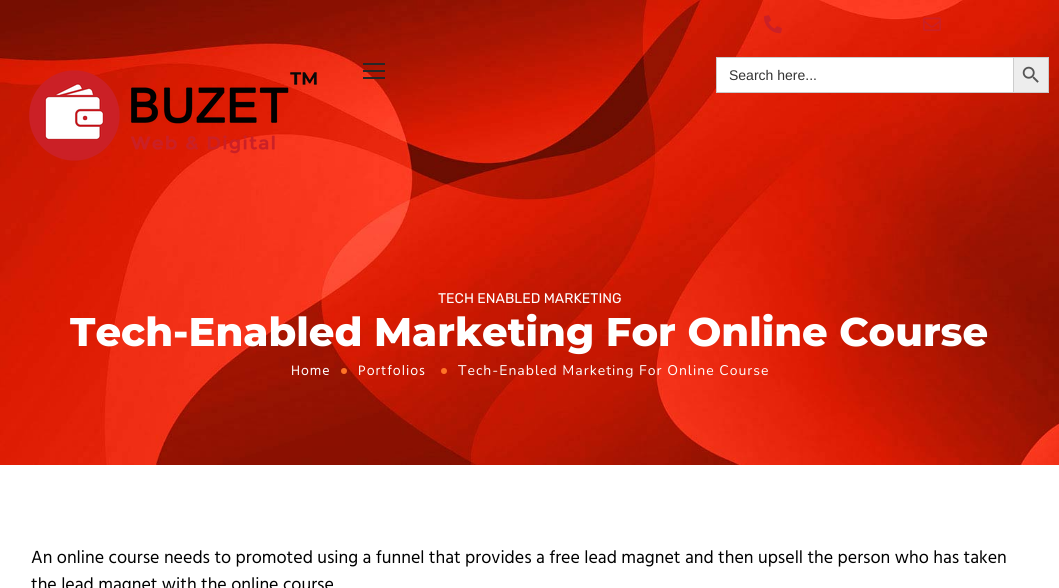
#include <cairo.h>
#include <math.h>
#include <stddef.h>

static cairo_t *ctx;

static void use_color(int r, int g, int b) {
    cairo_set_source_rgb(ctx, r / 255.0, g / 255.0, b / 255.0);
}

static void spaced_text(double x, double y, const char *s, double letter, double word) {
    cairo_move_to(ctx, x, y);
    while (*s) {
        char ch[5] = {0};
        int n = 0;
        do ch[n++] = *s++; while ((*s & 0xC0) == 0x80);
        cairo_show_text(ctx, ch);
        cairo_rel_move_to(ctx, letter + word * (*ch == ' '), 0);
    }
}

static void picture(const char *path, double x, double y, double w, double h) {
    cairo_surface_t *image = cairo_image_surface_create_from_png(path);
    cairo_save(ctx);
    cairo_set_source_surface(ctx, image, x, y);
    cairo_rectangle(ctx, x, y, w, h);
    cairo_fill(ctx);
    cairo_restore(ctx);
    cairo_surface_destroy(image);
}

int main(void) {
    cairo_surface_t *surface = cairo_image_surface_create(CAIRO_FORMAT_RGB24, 1059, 588);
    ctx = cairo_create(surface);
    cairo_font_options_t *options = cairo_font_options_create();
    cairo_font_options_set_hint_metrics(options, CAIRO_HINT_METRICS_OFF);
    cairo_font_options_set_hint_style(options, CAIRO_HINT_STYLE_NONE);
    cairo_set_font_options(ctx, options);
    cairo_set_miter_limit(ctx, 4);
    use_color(255, 255, 255);
    cairo_paint(ctx);
    picture("img5.png", 0, 0, 1059, 465);
    picture("img1.png", 764, 15, 18, 19);
    picture("img2.png", 923, 17, 18, 14);
    picture("img3.png", 29, 70, 288, 91);
    use_color(39, 39, 39);
    cairo_rectangle(ctx, 363, 70, 22, 2);
    cairo_fill(ctx);
    cairo_rectangle(ctx, 363, 63, 22, 2);
    cairo_fill(ctx);
    cairo_rectangle(ctx, 363, 77, 22, 2);
    cairo_fill(ctx);
    use_color(255, 255, 255);
    cairo_rectangle(ctx, 717, 58, 296, 34);
    cairo_fill(ctx);
    use_color(204, 204, 204);
    cairo_rectangle(ctx, 716, 57, 297, 1);
    cairo_fill(ctx);
    cairo_rectangle(ctx, 716, 92, 297, 1);
    cairo_fill(ctx);
    cairo_rectangle(ctx, 716, 57, 1, 36);
    cairo_fill(ctx);
    cairo_select_font_face(ctx, "Liberation Sans", CAIRO_FONT_SLANT_NORMAL, CAIRO_FONT_WEIGHT_NORMAL);
    cairo_set_font_size(ctx, 14);
    use_color(51, 51, 51);
    cairo_move_to(ctx, 729, 80);
    cairo_show_text(ctx, "Search here...");
    use_color(237, 237, 237);
    cairo_rectangle(ctx, 1013.5, 57.5, 35, 35);
    cairo_fill_preserve(ctx);
    use_color(204, 204, 204);
    cairo_set_line_width(ctx, 1);
    cairo_stroke(ctx);
    picture("img4.png", 1022, 66, 17, 17);
    cairo_select_font_face(ctx, "Rubik Light", CAIRO_FONT_SLANT_NORMAL, CAIRO_FONT_WEIGHT_NORMAL);
    use_color(255, 255, 255);
    cairo_move_to(ctx, 438, 303);
    cairo_show_text(ctx, "TECH ENABLED MARKETING");
    cairo_select_font_face(ctx, "Montserrat ExtraBold", CAIRO_FONT_SLANT_NORMAL, CAIRO_FONT_WEIGHT_NORMAL);
    cairo_set_font_size(ctx, 40);
    cairo_move_to(ctx, 70, 346);
    cairo_show_text(ctx, "Tech-Enabled Marketing For Online Course");
    cairo_select_font_face(ctx, "Hind", CAIRO_FONT_SLANT_NORMAL, CAIRO_FONT_WEIGHT_NORMAL);
    cairo_set_font_size(ctx, 14);
    spaced_text(291, 375, "Home", 1, 0);
    use_color(255, 116, 38);
    cairo_new_path(ctx);
    cairo_arc(ctx, 344, 371, 3, 0, 2 * M_PI);
    cairo_fill(ctx);
    use_color(255, 255, 255);
    spaced_text(358, 375, "Portfolios", 1, 0);
    use_color(255, 116, 38);
    cairo_new_path(ctx);
    cairo_arc(ctx, 444, 371, 3, 0, 2 * M_PI);
    cairo_fill(ctx);
    cairo_select_font_face(ctx, "Nunito ExtraLight", CAIRO_FONT_SLANT_NORMAL, CAIRO_FONT_WEIGHT_NORMAL);
    use_color(255, 255, 255);
    spaced_text(458, 375, "Tech-Enabled Marketing For Online Course", 1, 0);
    cairo_select_font_face(ctx, "Hind", CAIRO_FONT_SLANT_NORMAL, CAIRO_FONT_WEIGHT_NORMAL);
    cairo_set_font_size(ctx, 18);
    use_color(0, 0, 0);
    cairo_move_to(ctx, 31, 563);
    cairo_show_text(ctx, "An online course needs to promoted using a funnel that provides a free lead magnet and then upsell the person who has taken");
    cairo_move_to(ctx, 31, 590);
    cairo_show_text(ctx, "the lead magnet with the online course");
    cairo_surface_write_to_png(surface, "result.png");
    cairo_font_options_destroy(options);
    cairo_destroy(ctx);
    cairo_surface_destroy(surface);
    return 0;
}
